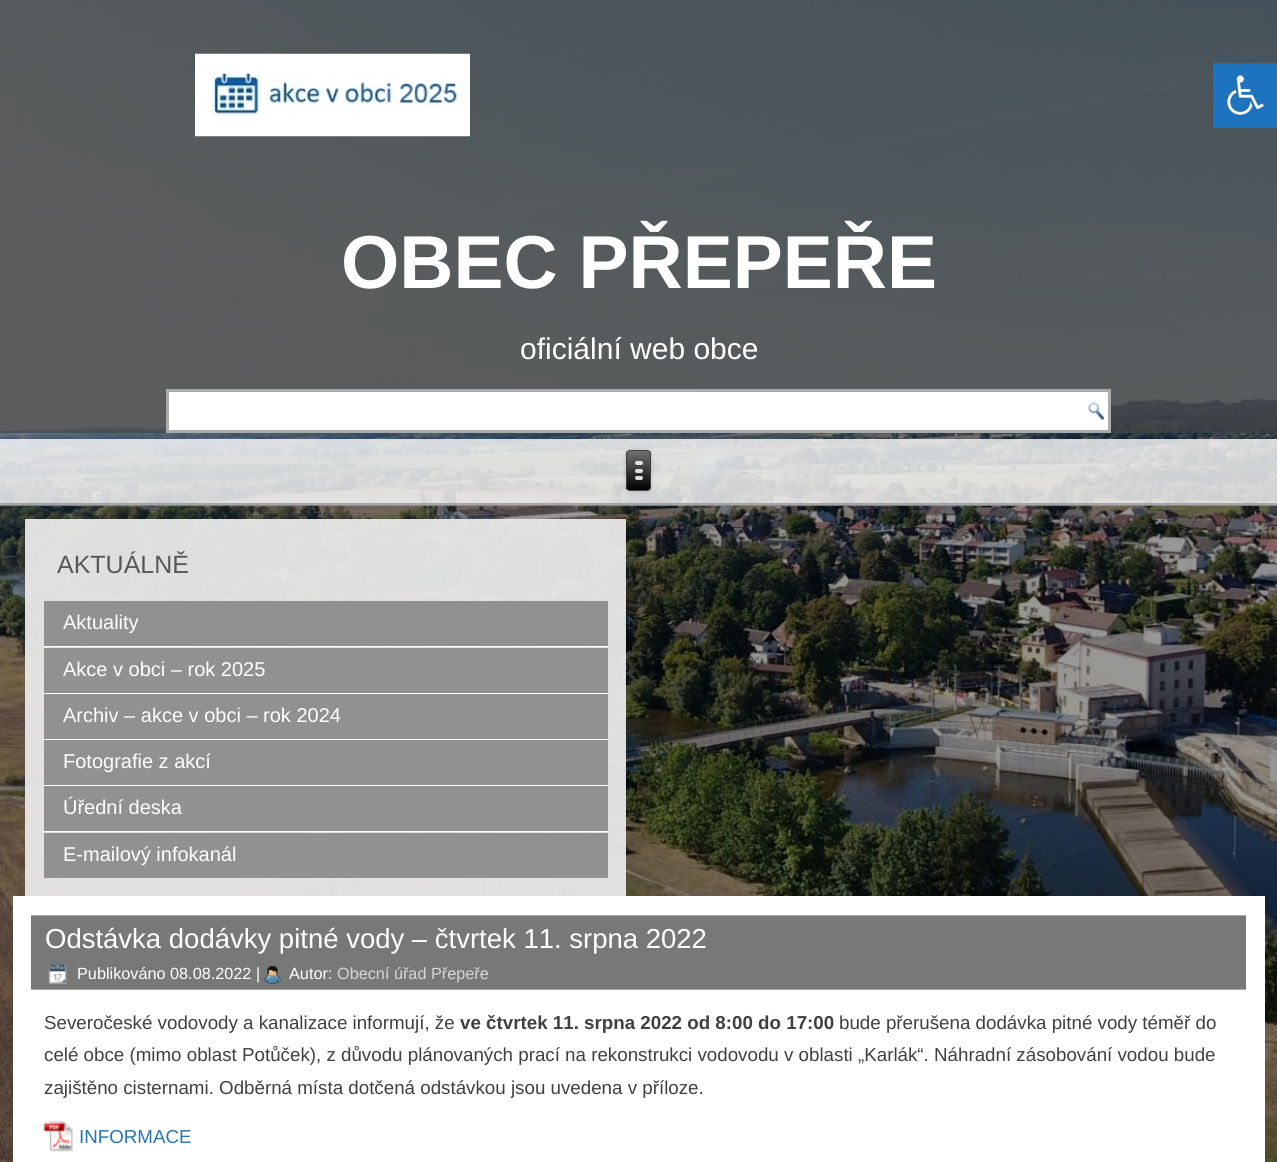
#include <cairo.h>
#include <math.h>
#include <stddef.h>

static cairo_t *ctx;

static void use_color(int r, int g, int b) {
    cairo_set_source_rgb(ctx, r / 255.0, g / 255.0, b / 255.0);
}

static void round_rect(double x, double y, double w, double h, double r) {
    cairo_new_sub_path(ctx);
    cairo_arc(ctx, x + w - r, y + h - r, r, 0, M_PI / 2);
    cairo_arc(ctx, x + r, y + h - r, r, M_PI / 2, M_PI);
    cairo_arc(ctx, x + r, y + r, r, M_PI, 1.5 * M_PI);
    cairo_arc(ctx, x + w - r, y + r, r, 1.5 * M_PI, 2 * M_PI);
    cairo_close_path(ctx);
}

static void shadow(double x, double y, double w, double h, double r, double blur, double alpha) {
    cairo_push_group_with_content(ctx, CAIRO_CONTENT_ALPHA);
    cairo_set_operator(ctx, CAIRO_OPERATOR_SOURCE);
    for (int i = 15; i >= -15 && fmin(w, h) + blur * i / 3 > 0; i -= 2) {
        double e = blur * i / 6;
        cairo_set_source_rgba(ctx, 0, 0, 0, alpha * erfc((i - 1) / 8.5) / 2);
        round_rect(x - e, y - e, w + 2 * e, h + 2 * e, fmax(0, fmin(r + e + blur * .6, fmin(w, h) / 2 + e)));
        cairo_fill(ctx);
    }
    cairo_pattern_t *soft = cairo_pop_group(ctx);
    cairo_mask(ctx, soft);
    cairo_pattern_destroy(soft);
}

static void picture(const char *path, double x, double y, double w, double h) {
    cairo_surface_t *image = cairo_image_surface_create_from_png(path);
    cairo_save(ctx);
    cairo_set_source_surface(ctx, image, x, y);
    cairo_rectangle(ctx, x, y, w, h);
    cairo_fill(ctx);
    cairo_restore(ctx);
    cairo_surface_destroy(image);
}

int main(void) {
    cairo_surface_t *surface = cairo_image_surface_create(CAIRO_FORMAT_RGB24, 1277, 1162);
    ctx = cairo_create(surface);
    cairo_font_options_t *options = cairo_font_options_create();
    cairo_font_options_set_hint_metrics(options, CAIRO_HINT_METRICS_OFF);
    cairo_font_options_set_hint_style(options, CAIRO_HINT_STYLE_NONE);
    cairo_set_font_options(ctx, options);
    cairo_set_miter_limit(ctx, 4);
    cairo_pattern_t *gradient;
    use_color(255, 255, 255);
    cairo_paint(ctx);
    picture("img1.png", 0, 0, 1277, 1162);
    cairo_set_source_rgba(ctx, 0.263, 0.263, 0.263, 0.7);
    cairo_rectangle(ctx, 0, 0, 1277, 433);
    cairo_fill(ctx);
    use_color(30, 115, 190);
    cairo_rectangle(ctx, 1213, 63, 64, 65);
    cairo_fill(ctx);
    picture("img2.png", 1227, 75, 37, 40);
    picture("img3.png", 195, 53, 275, 84);
    cairo_select_font_face(ctx, "Liberation Sans", CAIRO_FONT_SLANT_NORMAL, CAIRO_FONT_WEIGHT_BOLD);
    cairo_set_font_size(ctx, 75);
    use_color(255, 255, 255);
    cairo_move_to(ctx, 341, 288);
    cairo_show_text(ctx, "OBEC PŘEPEŘE");
    cairo_select_font_face(ctx, "Liberation Sans", CAIRO_FONT_SLANT_NORMAL, CAIRO_FONT_WEIGHT_NORMAL);
    cairo_set_font_size(ctx, 30);
    cairo_move_to(ctx, 520, 359);
    cairo_show_text(ctx, "oficiální web obce");
    cairo_rectangle(ctx, 167.5, 390.5, 942, 41);
    cairo_fill_preserve(ctx);
    use_color(171, 171, 171);
    cairo_set_line_width(ctx, 3);
    cairo_stroke(ctx);
    picture("img4.png", 1087, 402, 18, 19);
    cairo_set_source_rgba(ctx, 1, 1, 1, 0.8);
    cairo_rectangle(ctx, 0, 439, 1277, 66);
    cairo_fill(ctx);
    cairo_set_source_rgba(ctx, 0.592, 0.592, 0.608, 0.8);
    cairo_rectangle(ctx, 0, 503, 1277, 3);
    cairo_fill(ctx);
    use_color(0, 0, 0);
    shadow(626, 450, 25, 41, 4, 2, 0.2);
    cairo_save(ctx);
    round_rect(626, 450, 25, 41, 4);
    cairo_clip(ctx);
    gradient = cairo_pattern_create_linear(639, 451, 639, 490);
    cairo_pattern_add_color_stop_rgba(gradient, 0, 0.439, 0.439, 0.439, 1);
    cairo_pattern_add_color_stop_rgba(gradient, 1, 0, 0, 0, 1);
    cairo_set_source(ctx, gradient);
    cairo_pattern_destroy(gradient);
    cairo_rectangle(ctx, 626, 451, 25, 39);
    cairo_fill(ctx);
    cairo_restore(ctx);
    round_rect(626.5, 450.5, 24, 40, 3.5);
    use_color(64, 64, 64);
    cairo_set_line_width(ctx, 1);
    cairo_stroke(ctx);
    use_color(224, 224, 224);
    round_rect(635, 461, 8, 4, 2);
    cairo_fill(ctx);
    round_rect(635, 469, 8, 4, 2);
    cairo_fill(ctx);
    round_rect(635, 476, 8, 4, 2);
    cairo_fill(ctx);
    cairo_set_source_rgba(ctx, 0.91, 0.91, 0.91, 0.95);
    cairo_rectangle(ctx, 25, 519, 601, 377);
    cairo_fill(ctx);
    cairo_set_font_size(ctx, 25);
    use_color(87, 87, 87);
    cairo_move_to(ctx, 57, 573);
    cairo_show_text(ctx, "AKTUÁLNĚ");
    use_color(145, 145, 145);
    cairo_rectangle(ctx, 44, 601, 564, 45);
    cairo_fill(ctx);
    cairo_set_font_size(ctx, 20);
    use_color(255, 255, 255);
    cairo_move_to(ctx, 63, 629);
    cairo_show_text(ctx, "Aktuality");
    cairo_rectangle(ctx, 44, 646, 564, 1);
    cairo_fill(ctx);
    use_color(145, 145, 145);
    cairo_rectangle(ctx, 44, 648, 564, 45);
    cairo_fill(ctx);
    use_color(255, 255, 255);
    cairo_move_to(ctx, 63, 676);
    cairo_show_text(ctx, "Akce v obci – rok 2025");
    cairo_rectangle(ctx, 44, 693, 564, 1);
    cairo_fill(ctx);
    use_color(145, 145, 145);
    cairo_rectangle(ctx, 44, 694, 564, 45);
    cairo_fill(ctx);
    use_color(255, 255, 255);
    cairo_move_to(ctx, 63, 722);
    cairo_show_text(ctx, "Archiv – akce v obci – rok 2024");
    cairo_rectangle(ctx, 44, 739, 564, 1);
    cairo_fill(ctx);
    use_color(145, 145, 145);
    cairo_rectangle(ctx, 44, 740, 564, 45);
    cairo_fill(ctx);
    use_color(255, 255, 255);
    cairo_move_to(ctx, 63, 768);
    cairo_show_text(ctx, "Fotografie z akcí");
    cairo_rectangle(ctx, 44, 785, 564, 1);
    cairo_fill(ctx);
    use_color(145, 145, 145);
    cairo_rectangle(ctx, 44, 786, 564, 45);
    cairo_fill(ctx);
    use_color(255, 255, 255);
    cairo_move_to(ctx, 63, 814);
    cairo_show_text(ctx, "Úřední deska");
    cairo_rectangle(ctx, 44, 831, 564, 1);
    cairo_fill(ctx);
    use_color(145, 145, 145);
    cairo_rectangle(ctx, 44, 833, 564, 45);
    cairo_fill(ctx);
    use_color(255, 255, 255);
    cairo_move_to(ctx, 63, 861);
    cairo_show_text(ctx, "E-mailový infokanál");
    cairo_rectangle(ctx, 13, 896, 1252, 266);
    cairo_fill(ctx);
    use_color(120, 120, 120);
    cairo_rectangle(ctx, 31, 916, 1215, 73);
    cairo_fill(ctx);
    use_color(171, 171, 171);
    cairo_rectangle(ctx, 31, 915, 1215, 1);
    cairo_fill(ctx);
    cairo_rectangle(ctx, 31, 989, 1215, 1);
    cairo_fill(ctx);
    cairo_set_font_size(ctx, 27.5);
    use_color(255, 255, 255);
    cairo_move_to(ctx, 45, 948);
    cairo_show_text(ctx, "Odstávka dodávky pitné vody – čtvrtek 11. srpna 2022");
    picture("img5.png", 48, 964, 19, 20);
    cairo_set_font_size(ctx, 16.25);
    cairo_move_to(ctx, 77, 979);
    cairo_show_text(ctx, "Publikováno 08.08.2022 |");
    picture("img6.png", 263, 966, 19, 18);
    cairo_move_to(ctx, 289, 979);
    cairo_show_text(ctx, "Autor:");
    use_color(214, 214, 214);
    cairo_move_to(ctx, 337, 979);
    cairo_show_text(ctx, "Obecní úřad Přepeře");
    cairo_set_font_size(ctx, 18.75);
    use_color(64, 64, 64);
    cairo_move_to(ctx, 44, 1029);
    cairo_show_text(ctx, "Severočeské vodovody a kanalizace informují, že");
    cairo_select_font_face(ctx, "Liberation Sans", CAIRO_FONT_SLANT_NORMAL, CAIRO_FONT_WEIGHT_BOLD);
    cairo_move_to(ctx, 460, 1029);
    cairo_show_text(ctx, "ve čtvrtek 11. srpna 2022 od 8:00 do 17:00");
    cairo_select_font_face(ctx, "Liberation Sans", CAIRO_FONT_SLANT_NORMAL, CAIRO_FONT_WEIGHT_NORMAL);
    cairo_move_to(ctx, 839, 1029);
    cairo_show_text(ctx, "bude přerušena dodávka pitné vody téměř do");
    cairo_move_to(ctx, 44, 1061);
    cairo_show_text(ctx, "celé obce (mimo oblast Potůček), z důvodu plánovaných prací na rekonstrukci vodovodu v oblasti „Karlák“. Náhradní zásobování vodou bude");
    cairo_move_to(ctx, 44, 1094);
    cairo_show_text(ctx, "zajištěno cisternami. Odběrná místa dotčená odstávkou jsou uvedena v příloze.");
    picture("img7.png", 43, 1121, 30, 31);
    use_color(38, 117, 181);
    cairo_move_to(ctx, 79, 1143);
    cairo_show_text(ctx, "INFORMACE");
    cairo_surface_write_to_png(surface, "result.png");
    cairo_font_options_destroy(options);
    cairo_destroy(ctx);
    cairo_surface_destroy(surface);
    return 0;
}
